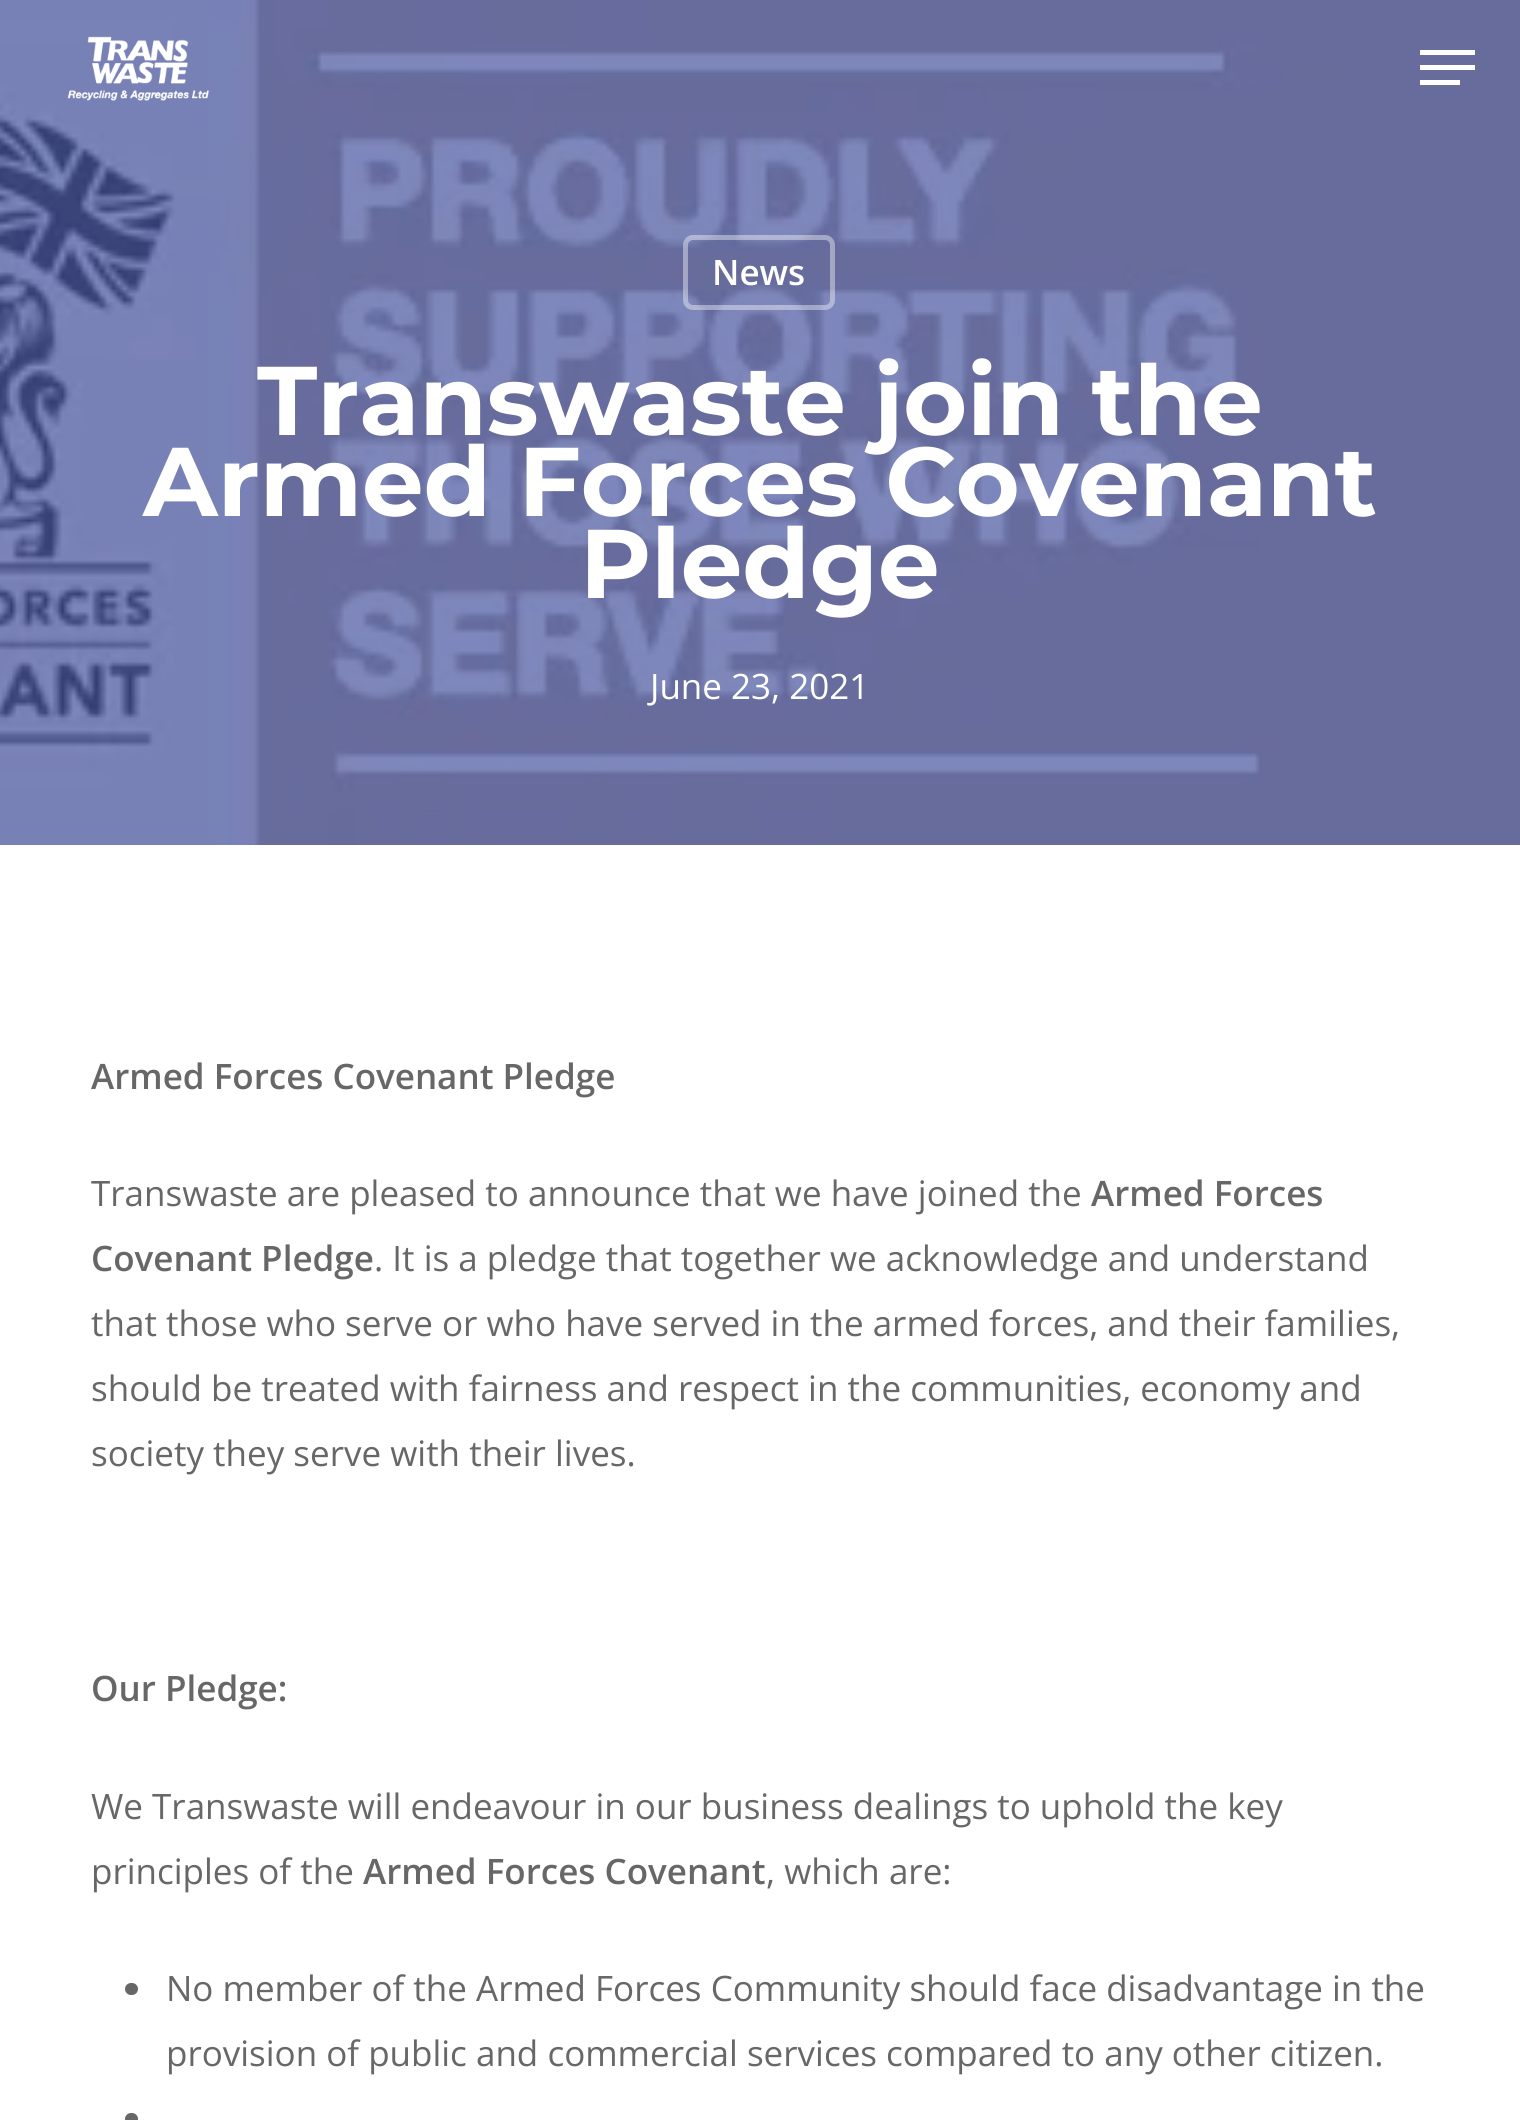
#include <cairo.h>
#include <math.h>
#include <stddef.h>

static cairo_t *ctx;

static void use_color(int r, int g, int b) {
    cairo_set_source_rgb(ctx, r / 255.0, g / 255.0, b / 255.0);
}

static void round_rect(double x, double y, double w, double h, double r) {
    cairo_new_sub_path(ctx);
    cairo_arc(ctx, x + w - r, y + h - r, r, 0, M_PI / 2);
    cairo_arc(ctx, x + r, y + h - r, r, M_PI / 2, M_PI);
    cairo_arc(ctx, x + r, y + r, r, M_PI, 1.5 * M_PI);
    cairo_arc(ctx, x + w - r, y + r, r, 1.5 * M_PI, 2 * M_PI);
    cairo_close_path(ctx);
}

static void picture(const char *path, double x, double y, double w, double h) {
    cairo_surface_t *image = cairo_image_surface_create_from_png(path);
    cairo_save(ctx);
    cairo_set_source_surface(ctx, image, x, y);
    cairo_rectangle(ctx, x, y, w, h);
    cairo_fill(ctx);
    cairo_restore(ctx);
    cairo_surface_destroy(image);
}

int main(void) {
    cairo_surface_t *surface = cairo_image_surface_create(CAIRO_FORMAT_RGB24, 1520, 2120);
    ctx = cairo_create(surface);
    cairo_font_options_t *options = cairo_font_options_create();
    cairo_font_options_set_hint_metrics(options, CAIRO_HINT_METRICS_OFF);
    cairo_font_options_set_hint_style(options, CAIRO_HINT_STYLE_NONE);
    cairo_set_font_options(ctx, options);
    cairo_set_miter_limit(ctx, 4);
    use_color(255, 255, 255);
    cairo_paint(ctx);
    picture("img2.png", 0, 0, 1520, 845);
    picture("img1.png", 67, 36, 143, 65);
    use_color(255, 255, 255);
    cairo_rectangle(ctx, 1420, 50, 55, 5);
    cairo_fill(ctx);
    cairo_rectangle(ctx, 1420, 80, 40, 5);
    cairo_fill(ctx);
    cairo_rectangle(ctx, 1420, 65, 55, 5);
    cairo_fill(ctx);
    round_rect(685.5, 237.5, 147, 70, 7.5);
    cairo_set_source_rgba(ctx, 1, 1, 1, 0.4);
    cairo_set_line_width(ctx, 5);
    cairo_stroke(ctx);
    cairo_select_font_face(ctx, "Open Sans SemiBold", CAIRO_FONT_SLANT_NORMAL, CAIRO_FONT_WEIGHT_NORMAL);
    cairo_set_font_size(ctx, 35);
    use_color(255, 255, 255);
    cairo_move_to(ctx, 712, 285);
    cairo_show_text(ctx, "News");
    cairo_select_font_face(ctx, "Montserrat", CAIRO_FONT_SLANT_NORMAL, CAIRO_FONT_WEIGHT_BOLD);
    cairo_set_font_size(ctx, 97.5);
    cairo_move_to(ctx, 257, 435);
    cairo_show_text(ctx, "Transwaste join the");
    cairo_move_to(ctx, 143, 516);
    cairo_show_text(ctx, "Armed Forces Covenant");
    cairo_move_to(ctx, 580, 598);
    cairo_show_text(ctx, "Pledge");
    cairo_select_font_face(ctx, "Open Sans", CAIRO_FONT_SLANT_NORMAL, CAIRO_FONT_WEIGHT_NORMAL);
    cairo_set_font_size(ctx, 35);
    cairo_move_to(ctx, 650, 699);
    cairo_show_text(ctx, "June 23, 2021");
    cairo_select_font_face(ctx, "Open Sans SemiBold", CAIRO_FONT_SLANT_NORMAL, CAIRO_FONT_WEIGHT_NORMAL);
    use_color(103, 103, 103);
    cairo_move_to(ctx, 91, 1089);
    cairo_show_text(ctx, "Armed Forces Covenant Pledge");
    cairo_select_font_face(ctx, "Open Sans", CAIRO_FONT_SLANT_NORMAL, CAIRO_FONT_WEIGHT_NORMAL);
    cairo_move_to(ctx, 91, 1206);
    cairo_show_text(ctx, "Transwaste are pleased to announce that we have joined the");
    cairo_select_font_face(ctx, "Open Sans SemiBold", CAIRO_FONT_SLANT_NORMAL, CAIRO_FONT_WEIGHT_NORMAL);
    cairo_move_to(ctx, 1091, 1206);
    cairo_show_text(ctx, "Armed Forces");
    cairo_move_to(ctx, 91, 1271);
    cairo_show_text(ctx, "Covenant Pledge");
    cairo_select_font_face(ctx, "Open Sans", CAIRO_FONT_SLANT_NORMAL, CAIRO_FONT_WEIGHT_NORMAL);
    cairo_move_to(ctx, 374, 1271);
    cairo_show_text(ctx, ". It is a pledge that together we acknowledge and understand");
    cairo_move_to(ctx, 91, 1336);
    cairo_show_text(ctx, "that those who serve or who have served in the armed forces, and their families,");
    cairo_move_to(ctx, 91, 1401);
    cairo_show_text(ctx, "should be treated with fairness and respect in the communities, economy and");
    cairo_move_to(ctx, 91, 1466);
    cairo_show_text(ctx, "society they serve with their lives.");
    cairo_select_font_face(ctx, "Open Sans SemiBold", CAIRO_FONT_SLANT_NORMAL, CAIRO_FONT_WEIGHT_NORMAL);
    cairo_move_to(ctx, 91, 1701);
    cairo_show_text(ctx, "Our Pledge:");
    cairo_select_font_face(ctx, "Open Sans", CAIRO_FONT_SLANT_NORMAL, CAIRO_FONT_WEIGHT_NORMAL);
    cairo_move_to(ctx, 91, 1819);
    cairo_show_text(ctx, "We Transwaste will endeavour in our business dealings to uphold the key");
    cairo_move_to(ctx, 91, 1884);
    cairo_show_text(ctx, "principles of the");
    cairo_select_font_face(ctx, "Open Sans SemiBold", CAIRO_FONT_SLANT_NORMAL, CAIRO_FONT_WEIGHT_NORMAL);
    cairo_move_to(ctx, 363, 1884);
    cairo_show_text(ctx, "Armed Forces Covenant");
    cairo_select_font_face(ctx, "Open Sans", CAIRO_FONT_SLANT_NORMAL, CAIRO_FONT_WEIGHT_NORMAL);
    cairo_move_to(ctx, 766, 1884);
    cairo_show_text(ctx, ", which are:");
    round_rect(125, 1983, 13, 12, 6);
    cairo_fill(ctx);
    cairo_move_to(ctx, 166, 2001);
    cairo_show_text(ctx, "No member of the Armed Forces Community should face disadvantage in the");
    cairo_move_to(ctx, 166, 2066);
    cairo_show_text(ctx, "provision of public and commercial services compared to any other citizen.");
    round_rect(125, 2113, 13, 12, 6);
    cairo_fill(ctx);
    cairo_surface_write_to_png(surface, "result.png");
    cairo_font_options_destroy(options);
    cairo_destroy(ctx);
    cairo_surface_destroy(surface);
    return 0;
}
